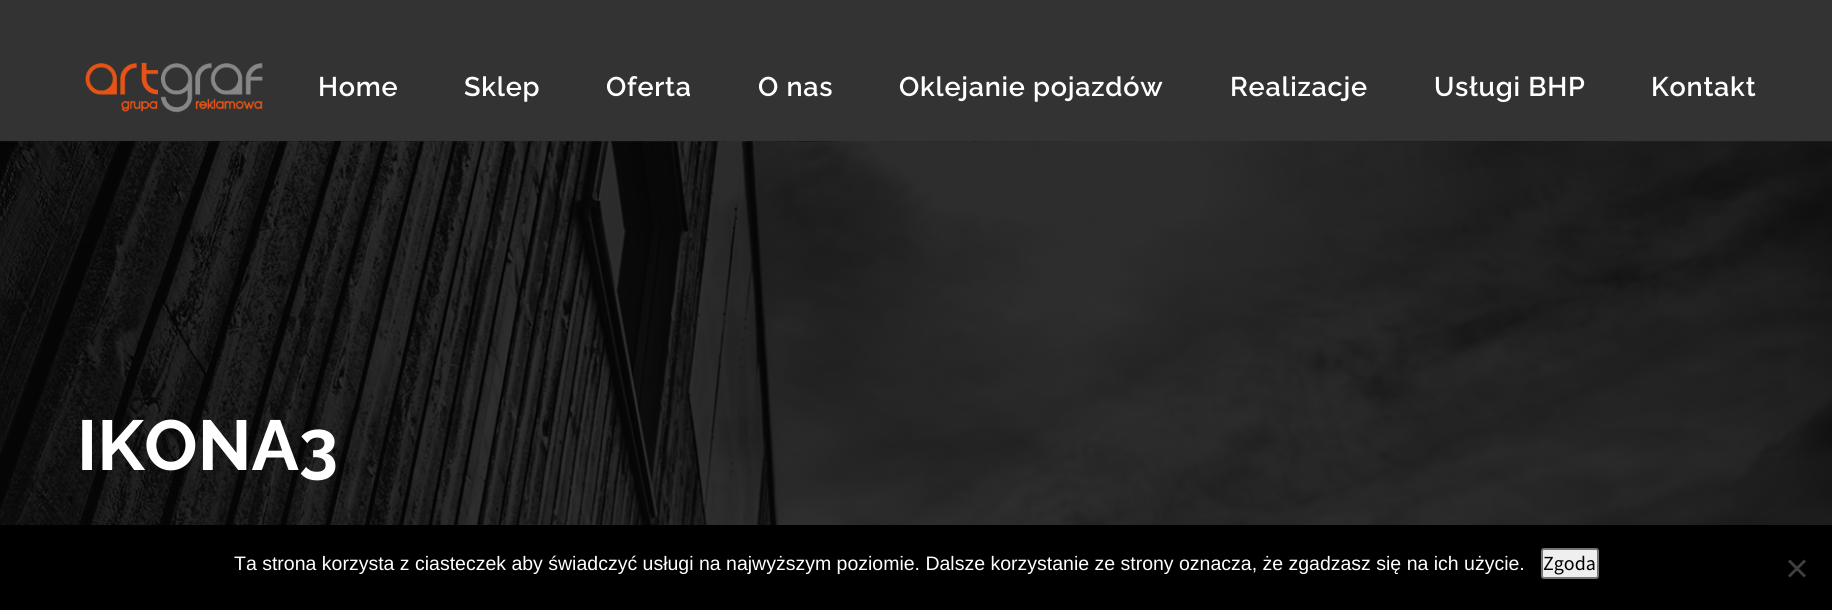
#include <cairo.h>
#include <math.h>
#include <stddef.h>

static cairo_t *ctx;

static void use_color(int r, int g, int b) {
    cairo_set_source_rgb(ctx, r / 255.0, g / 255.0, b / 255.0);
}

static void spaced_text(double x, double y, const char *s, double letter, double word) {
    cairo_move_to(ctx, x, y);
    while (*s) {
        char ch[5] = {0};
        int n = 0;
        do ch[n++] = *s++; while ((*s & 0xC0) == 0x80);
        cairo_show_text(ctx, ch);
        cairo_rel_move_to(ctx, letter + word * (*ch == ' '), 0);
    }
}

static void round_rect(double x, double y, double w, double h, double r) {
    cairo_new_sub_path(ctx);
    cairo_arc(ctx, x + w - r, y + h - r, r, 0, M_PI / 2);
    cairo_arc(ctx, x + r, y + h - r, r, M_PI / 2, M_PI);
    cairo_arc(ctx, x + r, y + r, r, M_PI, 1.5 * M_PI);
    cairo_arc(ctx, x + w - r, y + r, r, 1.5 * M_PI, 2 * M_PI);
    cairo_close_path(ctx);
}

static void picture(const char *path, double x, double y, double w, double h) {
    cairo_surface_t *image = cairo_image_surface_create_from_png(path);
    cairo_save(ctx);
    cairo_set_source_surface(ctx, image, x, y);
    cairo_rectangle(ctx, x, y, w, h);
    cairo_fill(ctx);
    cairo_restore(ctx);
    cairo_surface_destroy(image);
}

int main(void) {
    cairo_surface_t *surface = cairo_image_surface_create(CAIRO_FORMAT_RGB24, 1832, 610);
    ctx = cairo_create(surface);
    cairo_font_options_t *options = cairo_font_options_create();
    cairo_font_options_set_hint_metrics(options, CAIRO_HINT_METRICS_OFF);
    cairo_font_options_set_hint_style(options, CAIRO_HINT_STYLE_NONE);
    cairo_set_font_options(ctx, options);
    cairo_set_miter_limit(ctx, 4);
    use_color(51, 51, 51);
    cairo_paint(ctx);
    picture("img1.png", 85, 62, 178, 51);
    cairo_select_font_face(ctx, "Raleway SemiBold", CAIRO_FONT_SLANT_NORMAL, CAIRO_FONT_WEIGHT_NORMAL);
    cairo_set_font_size(ctx, 27);
    use_color(255, 255, 255);
    spaced_text(318, 96, "Home", 0.75, 0);
    spaced_text(464, 96, "Sklep", 0.75, 0);
    spaced_text(606, 96, "Oferta", 0.75, 0);
    spaced_text(758, 96, "O nas", 0.75, 0);
    spaced_text(899, 96, "Oklejanie pojazdów", 0.75, 0);
    spaced_text(1230, 96, "Realizacje", 0.75, 0);
    spaced_text(1434, 96, "Usługi BHP", 0.75, 0);
    spaced_text(1651, 96, "Kontakt", 0.75, 0);
    picture("img2.png", 0, 141, 1832, 384);
    cairo_select_font_face(ctx, "Raleway", CAIRO_FONT_SLANT_NORMAL, CAIRO_FONT_WEIGHT_BOLD);
    cairo_set_font_size(ctx, 70.5);
    cairo_move_to(ctx, 77, 470);
    cairo_show_text(ctx, "IKONA3");
    use_color(0, 0, 0);
    cairo_rectangle(ctx, 0, 525, 1832, 85);
    cairo_fill(ctx);
    cairo_select_font_face(ctx, "Liberation Sans", CAIRO_FONT_SLANT_NORMAL, CAIRO_FONT_WEIGHT_NORMAL);
    cairo_set_font_size(ctx, 19.5);
    use_color(255, 255, 255);
    cairo_move_to(ctx, 234, 570);
    cairo_show_text(ctx, "Ta strona korzysta z ciasteczek aby świadczyć usługi na najwyższym poziomie. Dalsze korzystanie ze strony oznacza, że zgadzasz się na ich użycie.");
    use_color(239, 239, 239);
    round_rect(1542, 549, 56, 29, 2);
    cairo_fill_preserve(ctx);
    use_color(118, 118, 118);
    cairo_stroke(ctx);
    cairo_select_font_face(ctx, "Source Sans Pro", CAIRO_FONT_SLANT_NORMAL, CAIRO_FONT_WEIGHT_NORMAL);
    cairo_set_font_size(ctx, 20);
    use_color(0, 0, 0);
    cairo_move_to(ctx, 1543, 570);
    cairo_show_text(ctx, "Zgoda");
    use_color(64, 64, 64);
    cairo_new_path(ctx);
    cairo_move_to(ctx, 1804, 559.5);
    cairo_line_to(ctx, 1806, 561.5);
    cairo_line_to(ctx, 1790, 577.5);
    cairo_line_to(ctx, 1788, 575.5);
    cairo_close_path(ctx);
    cairo_fill(ctx);
    cairo_new_path(ctx);
    cairo_move_to(ctx, 1788, 561.5);
    cairo_line_to(ctx, 1790, 559.5);
    cairo_line_to(ctx, 1806, 575.5);
    cairo_line_to(ctx, 1804, 577.5);
    cairo_close_path(ctx);
    cairo_fill(ctx);
    cairo_surface_write_to_png(surface, "result.png");
    cairo_font_options_destroy(options);
    cairo_destroy(ctx);
    cairo_surface_destroy(surface);
    return 0;
}
